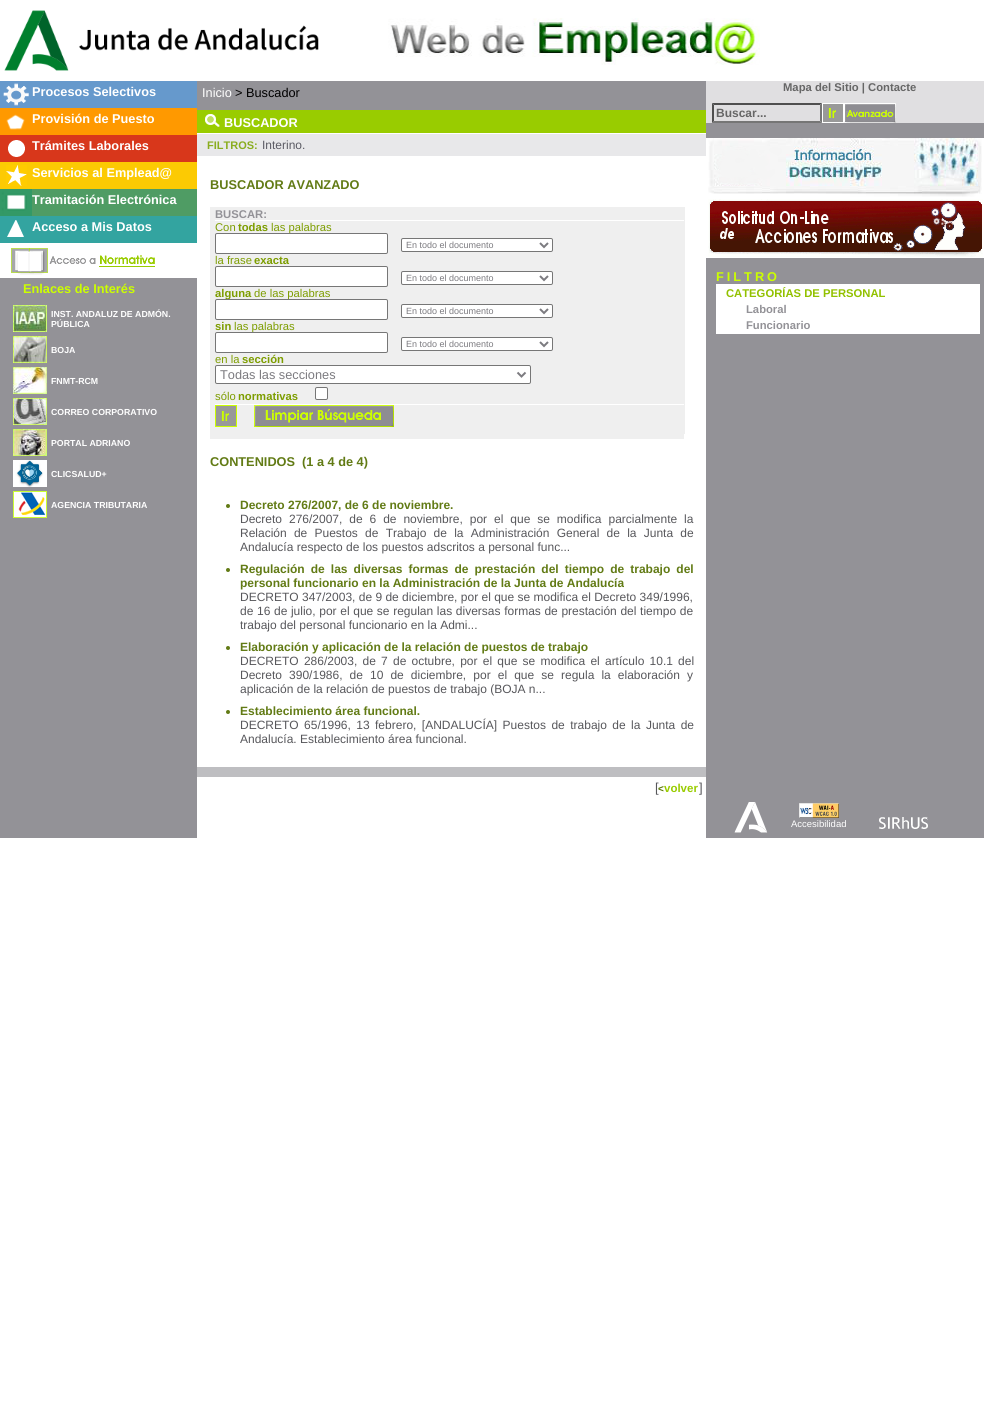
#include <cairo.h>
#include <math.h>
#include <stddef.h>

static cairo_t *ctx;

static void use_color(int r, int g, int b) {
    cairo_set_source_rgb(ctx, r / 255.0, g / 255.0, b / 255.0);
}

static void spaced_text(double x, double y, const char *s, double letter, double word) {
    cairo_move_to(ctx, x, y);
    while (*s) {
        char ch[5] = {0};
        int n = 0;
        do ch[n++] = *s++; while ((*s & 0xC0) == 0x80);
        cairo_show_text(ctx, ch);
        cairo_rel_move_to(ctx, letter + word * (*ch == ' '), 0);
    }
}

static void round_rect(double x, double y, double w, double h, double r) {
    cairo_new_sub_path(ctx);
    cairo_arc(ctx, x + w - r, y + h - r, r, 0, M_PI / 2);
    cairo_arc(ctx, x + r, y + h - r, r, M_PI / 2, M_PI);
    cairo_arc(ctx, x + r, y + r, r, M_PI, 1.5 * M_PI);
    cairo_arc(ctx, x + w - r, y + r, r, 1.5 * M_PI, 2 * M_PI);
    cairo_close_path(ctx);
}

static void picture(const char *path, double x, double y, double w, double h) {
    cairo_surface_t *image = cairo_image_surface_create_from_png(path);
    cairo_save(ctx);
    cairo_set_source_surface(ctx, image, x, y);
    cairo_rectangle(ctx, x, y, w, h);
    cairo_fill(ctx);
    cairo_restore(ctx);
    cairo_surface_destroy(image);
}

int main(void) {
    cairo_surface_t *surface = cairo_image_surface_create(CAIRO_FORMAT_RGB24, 984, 1404);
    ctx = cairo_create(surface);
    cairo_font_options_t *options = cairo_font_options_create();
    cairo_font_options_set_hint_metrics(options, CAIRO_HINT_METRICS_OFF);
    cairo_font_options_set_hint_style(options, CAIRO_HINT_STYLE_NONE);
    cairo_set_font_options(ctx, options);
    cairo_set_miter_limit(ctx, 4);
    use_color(255, 255, 255);
    cairo_paint(ctx);
    picture("img1.png", 4, 10, 315, 61);
    picture("img2.png", 388, 18, 372, 47);
    use_color(147, 146, 151);
    cairo_rectangle(ctx, 0, 278, 197, 560);
    cairo_fill(ctx);
    use_color(102, 153, 204);
    cairo_rectangle(ctx, 0, 81, 197, 27);
    cairo_fill(ctx);
    picture("img3.png", 3, 83, 26, 23);
    cairo_select_font_face(ctx, "Liberation Sans", CAIRO_FONT_SLANT_NORMAL, CAIRO_FONT_WEIGHT_BOLD);
    cairo_set_font_size(ctx, 12.75);
    use_color(255, 255, 255);
    cairo_move_to(ctx, 32, 96);
    cairo_show_text(ctx, "Procesos Selectivos");
    use_color(255, 153, 0);
    cairo_rectangle(ctx, 0, 108, 197, 27);
    cairo_fill(ctx);
    picture("img4.png", 6, 114, 19, 16);
    use_color(255, 255, 255);
    cairo_move_to(ctx, 32, 123);
    cairo_show_text(ctx, "Provisión de Puesto");
    use_color(216, 55, 27);
    cairo_rectangle(ctx, 0, 135, 197, 27);
    cairo_fill(ctx);
    picture("img5.png", 8, 140, 17, 17);
    use_color(255, 255, 255);
    cairo_move_to(ctx, 32, 150);
    cairo_show_text(ctx, "Trámites Laborales");
    use_color(252, 202, 3);
    cairo_rectangle(ctx, 0, 162, 197, 27);
    cairo_fill(ctx);
    picture("img6.png", 6, 165, 21, 21);
    use_color(255, 255, 255);
    cairo_move_to(ctx, 32, 177);
    cairo_show_text(ctx, "Servicios al Emplead@");
    use_color(79, 156, 100);
    cairo_rectangle(ctx, 32, 189, 165, 27);
    cairo_fill(ctx);
    picture("img7.png", 0, 189, 32, 27);
    use_color(255, 255, 255);
    cairo_move_to(ctx, 32, 204);
    cairo_show_text(ctx, "Tramitación Electrónica");
    use_color(51, 164, 160);
    cairo_rectangle(ctx, 0, 216, 197, 27);
    cairo_fill(ctx);
    picture("img8.png", 7, 220, 17, 17);
    use_color(255, 255, 255);
    cairo_move_to(ctx, 32, 231);
    cairo_show_text(ctx, "Acceso a Mis Datos");
    picture("img9.png", 11, 248, 144, 27);
    use_color(204, 255, 0);
    cairo_move_to(ctx, 23, 293);
    cairo_show_text(ctx, "Enlaces de Interés");
    picture("img10.png", 13, 305, 34, 27);
    cairo_set_font_size(ctx, 8.75);
    use_color(255, 255, 255);
    cairo_move_to(ctx, 51, 317);
    cairo_show_text(ctx, "INST. ANDALUZ DE ADMÓN.");
    cairo_move_to(ctx, 51, 327);
    cairo_show_text(ctx, "PÚBLICA");
    picture("img11.png", 13, 336, 34, 27);
    cairo_move_to(ctx, 51, 353);
    cairo_show_text(ctx, "BOJA");
    picture("img12.png", 13, 367, 34, 27);
    cairo_move_to(ctx, 51, 384);
    cairo_show_text(ctx, "FNMT-RCM");
    picture("img13.png", 13, 398, 34, 27);
    cairo_move_to(ctx, 51, 415);
    cairo_show_text(ctx, "CORREO CORPORATIVO");
    picture("img14.png", 13, 429, 34, 27);
    cairo_move_to(ctx, 51, 446);
    cairo_show_text(ctx, "PORTAL ADRIANO");
    picture("img15.png", 13, 460, 34, 27);
    cairo_move_to(ctx, 51, 477);
    cairo_show_text(ctx, "CLICSALUD+");
    picture("img16.png", 13, 491, 34, 27);
    cairo_move_to(ctx, 51, 508);
    cairo_show_text(ctx, "AGENCIA TRIBUTARIA");
    use_color(147, 146, 151);
    cairo_rectangle(ctx, 197, 81, 509, 29);
    cairo_fill(ctx);
    cairo_select_font_face(ctx, "Liberation Sans", CAIRO_FONT_SLANT_NORMAL, CAIRO_FONT_WEIGHT_NORMAL);
    cairo_set_font_size(ctx, 12.75);
    use_color(255, 255, 255);
    cairo_move_to(ctx, 202, 97);
    cairo_show_text(ctx, "Inicio");
    use_color(0, 0, 0);
    cairo_move_to(ctx, 235, 97);
    cairo_show_text(ctx, "> Buscador");
    use_color(153, 204, 0);
    cairo_rectangle(ctx, 197, 110, 509, 23);
    cairo_fill(ctx);
    picture("img17.png", 205, 114, 15, 13);
    cairo_select_font_face(ctx, "Liberation Sans", CAIRO_FONT_SLANT_NORMAL, CAIRO_FONT_WEIGHT_BOLD);
    use_color(255, 255, 255);
    cairo_move_to(ctx, 224, 127);
    cairo_show_text(ctx, "BUSCADOR");
    use_color(232, 232, 234);
    cairo_rectangle(ctx, 197, 134, 509, 22);
    cairo_fill(ctx);
    cairo_set_font_size(ctx, 11);
    use_color(138, 173, 31);
    cairo_move_to(ctx, 207, 149);
    cairo_show_text(ctx, "FILTROS:");
    cairo_select_font_face(ctx, "Liberation Sans", CAIRO_FONT_SLANT_NORMAL, CAIRO_FONT_WEIGHT_NORMAL);
    cairo_set_font_size(ctx, 12);
    use_color(91, 91, 100);
    cairo_move_to(ctx, 262, 149);
    cairo_show_text(ctx, "Interino.");
    cairo_select_font_face(ctx, "Liberation Sans", CAIRO_FONT_SLANT_NORMAL, CAIRO_FONT_WEIGHT_BOLD);
    cairo_set_font_size(ctx, 12.75);
    use_color(98, 123, 21);
    cairo_move_to(ctx, 210, 189);
    cairo_show_text(ctx, "BUSCADOR AVANZADO");
    use_color(239, 239, 239);
    cairo_rectangle(ctx, 210, 434, 474, 5);
    cairo_fill(ctx);
    cairo_rectangle(ctx, 210, 207, 475, 227);
    cairo_fill(ctx);
    cairo_set_font_size(ctx, 11.25);
    use_color(147, 146, 151);
    cairo_move_to(ctx, 215, 218);
    cairo_show_text(ctx, "BUSCAR:");
    use_color(255, 255, 255);
    cairo_rectangle(ctx, 215, 220, 469, 1);
    cairo_fill(ctx);
    cairo_select_font_face(ctx, "Liberation Sans", CAIRO_FONT_SLANT_NORMAL, CAIRO_FONT_WEIGHT_NORMAL);
    use_color(125, 157, 0);
    cairo_move_to(ctx, 215, 231);
    cairo_show_text(ctx, "Con");
    cairo_select_font_face(ctx, "Liberation Sans", CAIRO_FONT_SLANT_NORMAL, CAIRO_FONT_WEIGHT_BOLD);
    cairo_move_to(ctx, 238, 231);
    cairo_show_text(ctx, "todas");
    cairo_select_font_face(ctx, "Liberation Sans", CAIRO_FONT_SLANT_NORMAL, CAIRO_FONT_WEIGHT_NORMAL);
    cairo_move_to(ctx, 271, 231);
    cairo_show_text(ctx, "las palabras");
    use_color(255, 255, 255);
    round_rect(215.5, 233.5, 172, 20, 1.5);
    cairo_fill_preserve(ctx);
    use_color(118, 118, 118);
    cairo_set_line_width(ctx, 1);
    cairo_stroke(ctx);
    use_color(255, 255, 255);
    round_rect(401.5, 238.5, 151, 13, 1.5);
    cairo_fill_preserve(ctx);
    use_color(118, 118, 118);
    cairo_stroke(ctx);
    cairo_new_path(ctx);
    cairo_move_to(ctx, 540, 243);
    cairo_line_to(ctx, 544, 247);
    cairo_line_to(ctx, 548, 243);
    use_color(124, 123, 128);
    cairo_set_line_width(ctx, 2);
    cairo_stroke(ctx);
    cairo_set_font_size(ctx, 9);
    cairo_move_to(ctx, 406, 248);
    cairo_show_text(ctx, "En todo el documento");
    cairo_set_font_size(ctx, 11.25);
    use_color(125, 157, 0);
    cairo_move_to(ctx, 215, 264);
    cairo_show_text(ctx, "la frase");
    cairo_select_font_face(ctx, "Liberation Sans", CAIRO_FONT_SLANT_NORMAL, CAIRO_FONT_WEIGHT_BOLD);
    cairo_move_to(ctx, 254, 264);
    cairo_show_text(ctx, "exacta");
    use_color(255, 255, 255);
    round_rect(215.5, 266.5, 172, 20, 1.5);
    cairo_fill_preserve(ctx);
    use_color(118, 118, 118);
    cairo_set_line_width(ctx, 1);
    cairo_stroke(ctx);
    use_color(255, 255, 255);
    round_rect(401.5, 271.5, 151, 13, 1.5);
    cairo_fill_preserve(ctx);
    use_color(118, 118, 118);
    cairo_stroke(ctx);
    cairo_new_path(ctx);
    cairo_move_to(ctx, 540, 276);
    cairo_line_to(ctx, 544, 280);
    cairo_line_to(ctx, 548, 276);
    use_color(124, 123, 128);
    cairo_set_line_width(ctx, 2);
    cairo_stroke(ctx);
    cairo_select_font_face(ctx, "Liberation Sans", CAIRO_FONT_SLANT_NORMAL, CAIRO_FONT_WEIGHT_NORMAL);
    cairo_set_font_size(ctx, 9);
    cairo_move_to(ctx, 406, 281);
    cairo_show_text(ctx, "En todo el documento");
    cairo_select_font_face(ctx, "Liberation Sans", CAIRO_FONT_SLANT_NORMAL, CAIRO_FONT_WEIGHT_BOLD);
    cairo_set_font_size(ctx, 11.25);
    use_color(125, 157, 0);
    cairo_move_to(ctx, 215, 297);
    cairo_show_text(ctx, "alguna");
    cairo_select_font_face(ctx, "Liberation Sans", CAIRO_FONT_SLANT_NORMAL, CAIRO_FONT_WEIGHT_NORMAL);
    cairo_move_to(ctx, 254, 297);
    cairo_show_text(ctx, "de las palabras");
    use_color(255, 255, 255);
    round_rect(215.5, 299.5, 172, 20, 1.5);
    cairo_fill_preserve(ctx);
    use_color(118, 118, 118);
    cairo_set_line_width(ctx, 1);
    cairo_stroke(ctx);
    use_color(255, 255, 255);
    round_rect(401.5, 304.5, 151, 13, 1.5);
    cairo_fill_preserve(ctx);
    use_color(118, 118, 118);
    cairo_stroke(ctx);
    cairo_new_path(ctx);
    cairo_move_to(ctx, 540, 309);
    cairo_line_to(ctx, 544, 313);
    cairo_line_to(ctx, 548, 309);
    use_color(124, 123, 128);
    cairo_set_line_width(ctx, 2);
    cairo_stroke(ctx);
    cairo_set_font_size(ctx, 9);
    cairo_move_to(ctx, 406, 314);
    cairo_show_text(ctx, "En todo el documento");
    cairo_select_font_face(ctx, "Liberation Sans", CAIRO_FONT_SLANT_NORMAL, CAIRO_FONT_WEIGHT_BOLD);
    cairo_set_font_size(ctx, 11.25);
    use_color(125, 157, 0);
    cairo_move_to(ctx, 215, 330);
    cairo_show_text(ctx, "sin");
    cairo_select_font_face(ctx, "Liberation Sans", CAIRO_FONT_SLANT_NORMAL, CAIRO_FONT_WEIGHT_NORMAL);
    cairo_move_to(ctx, 234, 330);
    cairo_show_text(ctx, "las palabras");
    use_color(255, 255, 255);
    round_rect(215.5, 332.5, 172, 20, 1.5);
    cairo_fill_preserve(ctx);
    use_color(118, 118, 118);
    cairo_set_line_width(ctx, 1);
    cairo_stroke(ctx);
    use_color(255, 255, 255);
    round_rect(401.5, 337.5, 151, 13, 1.5);
    cairo_fill_preserve(ctx);
    use_color(118, 118, 118);
    cairo_stroke(ctx);
    cairo_new_path(ctx);
    cairo_move_to(ctx, 540, 342);
    cairo_line_to(ctx, 544, 346);
    cairo_line_to(ctx, 548, 342);
    use_color(124, 123, 128);
    cairo_set_line_width(ctx, 2);
    cairo_stroke(ctx);
    cairo_set_font_size(ctx, 9);
    cairo_move_to(ctx, 406, 347);
    cairo_show_text(ctx, "En todo el documento");
    cairo_set_font_size(ctx, 11.25);
    use_color(125, 157, 0);
    cairo_move_to(ctx, 215, 363);
    cairo_show_text(ctx, "en la");
    cairo_select_font_face(ctx, "Liberation Sans", CAIRO_FONT_SLANT_NORMAL, CAIRO_FONT_WEIGHT_BOLD);
    cairo_move_to(ctx, 242, 363);
    cairo_show_text(ctx, "sección");
    use_color(255, 255, 255);
    round_rect(215.5, 365.5, 315, 18, 1.5);
    cairo_fill_preserve(ctx);
    use_color(118, 118, 118);
    cairo_set_line_width(ctx, 1);
    cairo_stroke(ctx);
    cairo_new_path(ctx);
    cairo_move_to(ctx, 517.5, 372.5);
    cairo_line_to(ctx, 521.5, 376.5);
    cairo_line_to(ctx, 525.5, 372.5);
    use_color(124, 123, 128);
    cairo_set_line_width(ctx, 2);
    cairo_stroke(ctx);
    cairo_select_font_face(ctx, "Liberation Sans", CAIRO_FONT_SLANT_NORMAL, CAIRO_FONT_WEIGHT_NORMAL);
    cairo_set_font_size(ctx, 12.75);
    cairo_move_to(ctx, 220, 379);
    cairo_show_text(ctx, "Todas las secciones");
    cairo_set_font_size(ctx, 11.25);
    use_color(125, 157, 0);
    cairo_move_to(ctx, 215, 400);
    cairo_show_text(ctx, "sólo");
    cairo_select_font_face(ctx, "Liberation Sans", CAIRO_FONT_SLANT_NORMAL, CAIRO_FONT_WEIGHT_BOLD);
    cairo_move_to(ctx, 238, 400);
    cairo_show_text(ctx, "normativas");
    use_color(255, 255, 255);
    round_rect(315.5, 387.5, 12, 12, 1.5);
    cairo_fill_preserve(ctx);
    use_color(118, 118, 118);
    cairo_set_line_width(ctx, 1);
    cairo_stroke(ctx);
    use_color(255, 255, 255);
    cairo_rectangle(ctx, 215, 404, 469, 1);
    cairo_fill(ctx);
    picture("img18.png", 215, 405, 22, 22);
    picture("img19.png", 254, 405, 140, 22);
    cairo_set_font_size(ctx, 12.75);
    use_color(98, 123, 21);
    cairo_move_to(ctx, 210, 466);
    cairo_show_text(ctx, "CONTENIDOS");
    cairo_move_to(ctx, 302, 466);
    cairo_show_text(ctx, "(1 a 4 de 4)");
    cairo_new_path(ctx);
    cairo_arc(ctx, 228, 506, 2, 0, 2 * M_PI);
    cairo_fill(ctx);
    cairo_set_font_size(ctx, 12);
    cairo_move_to(ctx, 240, 509);
    cairo_show_text(ctx, "Decreto 276/2007, de 6 de noviembre.");
    cairo_select_font_face(ctx, "Liberation Sans", CAIRO_FONT_SLANT_NORMAL, CAIRO_FONT_WEIGHT_NORMAL);
    use_color(87, 87, 91);
    spaced_text(240, 523, "Decreto 276/2007, de 6 de noviembre, por el que se modifica parcialmente la", 0, 3.6);
    spaced_text(240, 537, "Relación de Puestos de Trabajo de la Administración General de la Junta de", 0, 3.9);
    cairo_move_to(ctx, 240, 551);
    cairo_show_text(ctx, "Andalucía respecto de los puestos adscritos a personal func...");
    use_color(98, 123, 21);
    cairo_new_path(ctx);
    cairo_arc(ctx, 228, 570, 2, 0, 2 * M_PI);
    cairo_fill(ctx);
    cairo_select_font_face(ctx, "Liberation Sans", CAIRO_FONT_SLANT_NORMAL, CAIRO_FONT_WEIGHT_BOLD);
    spaced_text(240, 573, "Regulación de las diversas formas de prestación del tiempo de trabajo del", 0, 2.75);
    cairo_move_to(ctx, 240, 587);
    cairo_show_text(ctx, "personal funcionario en la Administración de la Junta de Andalucía");
    cairo_select_font_face(ctx, "Liberation Sans", CAIRO_FONT_SLANT_NORMAL, CAIRO_FONT_WEIGHT_NORMAL);
    use_color(87, 87, 91);
    cairo_move_to(ctx, 240, 601);
    cairo_show_text(ctx, "DECRETO 347/2003, de 9 de diciembre, por el que se modifica el Decreto 349/1996,");
    spaced_text(240, 615, "de 16 de julio, por el que se regulan las diversas formas de prestación del tiempo de", 0, 0.3);
    cairo_move_to(ctx, 240, 629);
    cairo_show_text(ctx, "trabajo del personal funcionario en la Admi...");
    use_color(98, 123, 21);
    cairo_new_path(ctx);
    cairo_arc(ctx, 228, 648, 2, 0, 2 * M_PI);
    cairo_fill(ctx);
    cairo_select_font_face(ctx, "Liberation Sans", CAIRO_FONT_SLANT_NORMAL, CAIRO_FONT_WEIGHT_BOLD);
    cairo_move_to(ctx, 240, 651);
    cairo_show_text(ctx, "Elaboración y aplicación de la relación de puestos de trabajo");
    cairo_select_font_face(ctx, "Liberation Sans", CAIRO_FONT_SLANT_NORMAL, CAIRO_FONT_WEIGHT_NORMAL);
    use_color(87, 87, 91);
    spaced_text(240, 665, "DECRETO 286/2003, de 7 de octubre, por el que se modifica el artículo 10.1 del", 0, 1.9);
    spaced_text(240, 679, "Decreto 390/1986, de 10 de diciembre, por el que se regula la elaboración y", 0, 3.75);
    cairo_move_to(ctx, 240, 693);
    cairo_show_text(ctx, "aplicación de la relación de puestos de trabajo (BOJA n...");
    use_color(98, 123, 21);
    cairo_new_path(ctx);
    cairo_arc(ctx, 228, 712, 2, 0, 2 * M_PI);
    cairo_fill(ctx);
    cairo_select_font_face(ctx, "Liberation Sans", CAIRO_FONT_SLANT_NORMAL, CAIRO_FONT_WEIGHT_BOLD);
    cairo_move_to(ctx, 240, 715);
    cairo_show_text(ctx, "Establecimiento área funcional.");
    cairo_select_font_face(ctx, "Liberation Sans", CAIRO_FONT_SLANT_NORMAL, CAIRO_FONT_WEIGHT_NORMAL);
    use_color(87, 87, 91);
    spaced_text(240, 729, "DECRETO 65/1996, 13 febrero, [ANDALUCÍA] Puestos de trabajo de la Junta de", 0, 2.1);
    cairo_move_to(ctx, 240, 743);
    cairo_show_text(ctx, "Andalucía. Establecimiento área funcional.");
    use_color(190, 190, 193);
    cairo_rectangle(ctx, 197, 767, 509, 10);
    cairo_fill(ctx);
    cairo_set_font_size(ctx, 13);
    use_color(87, 87, 91);
    cairo_move_to(ctx, 655, 792);
    cairo_show_text(ctx, "[");
    cairo_select_font_face(ctx, "Liberation Sans", CAIRO_FONT_SLANT_NORMAL, CAIRO_FONT_WEIGHT_BOLD);
    cairo_set_font_size(ctx, 10);
    use_color(88, 117, 0);
    cairo_move_to(ctx, 658, 792);
    cairo_show_text(ctx, "<");
    cairo_set_font_size(ctx, 11.5);
    use_color(153, 204, 0);
    cairo_move_to(ctx, 664, 792);
    cairo_show_text(ctx, "volver");
    cairo_select_font_face(ctx, "Liberation Sans", CAIRO_FONT_SLANT_NORMAL, CAIRO_FONT_WEIGHT_NORMAL);
    cairo_set_font_size(ctx, 13);
    use_color(87, 87, 91);
    cairo_move_to(ctx, 699, 792);
    cairo_show_text(ctx, "]");
    use_color(147, 146, 151);
    cairo_rectangle(ctx, 706, 123, 278, 715);
    cairo_fill(ctx);
    use_color(224, 223, 225);
    cairo_rectangle(ctx, 706, 81, 278, 42);
    cairo_fill(ctx);
    cairo_select_font_face(ctx, "Liberation Sans", CAIRO_FONT_SLANT_NORMAL, CAIRO_FONT_WEIGHT_BOLD);
    cairo_set_font_size(ctx, 11.25);
    use_color(102, 102, 102);
    cairo_move_to(ctx, 783, 91);
    cairo_show_text(ctx, "Mapa del Sitio | Contacte");
    use_color(79, 79, 79);
    cairo_new_path(ctx);
    cairo_move_to(ctx, 712, 103);
    cairo_line_to(ctx, 822, 103);
    cairo_line_to(ctx, 820, 105);
    cairo_line_to(ctx, 714, 105);
    cairo_close_path(ctx);
    cairo_fill(ctx);
    use_color(118, 118, 118);
    cairo_new_path(ctx);
    cairo_move_to(ctx, 822, 103);
    cairo_line_to(ctx, 822, 123);
    cairo_line_to(ctx, 820, 121);
    cairo_line_to(ctx, 820, 105);
    cairo_close_path(ctx);
    cairo_fill(ctx);
    cairo_new_path(ctx);
    cairo_move_to(ctx, 822, 123);
    cairo_line_to(ctx, 712, 123);
    cairo_line_to(ctx, 714, 121);
    cairo_line_to(ctx, 820, 121);
    cairo_close_path(ctx);
    cairo_fill(ctx);
    use_color(79, 79, 79);
    cairo_new_path(ctx);
    cairo_move_to(ctx, 712, 123);
    cairo_line_to(ctx, 712, 103);
    cairo_line_to(ctx, 714, 105);
    cairo_line_to(ctx, 714, 121);
    cairo_close_path(ctx);
    cairo_fill(ctx);
    cairo_set_font_size(ctx, 12);
    use_color(102, 102, 102);
    cairo_move_to(ctx, 716, 117);
    cairo_show_text(ctx, "Buscar...");
    picture("img20.png", 822, 103, 22, 20);
    picture("img21.png", 844, 103, 52, 20);
    use_color(255, 255, 255);
    cairo_rectangle(ctx, 706, 138, 278, 120);
    cairo_fill(ctx);
    picture("img22.png", 708, 138, 274, 59);
    picture("img23.png", 708, 199, 275, 58);
    cairo_set_font_size(ctx, 12.75);
    use_color(204, 255, 0);
    spaced_text(716, 281, "FILTRO", 3, 0);
    use_color(255, 255, 255);
    cairo_rectangle(ctx, 716, 284, 264, 50);
    cairo_fill(ctx);
    cairo_set_font_size(ctx, 11.25);
    use_color(146, 193, 0);
    cairo_move_to(ctx, 726, 297);
    cairo_show_text(ctx, "CATEGORÍAS DE PERSONAL");
    use_color(147, 146, 151);
    cairo_move_to(ctx, 746, 313);
    cairo_show_text(ctx, "Laboral");
    cairo_move_to(ctx, 746, 329);
    cairo_show_text(ctx, "Funcionario");
    picture("img24.png", 734, 802, 34, 31);
    picture("img25.png", 799, 803, 40, 15);
    cairo_select_font_face(ctx, "Liberation Sans", CAIRO_FONT_SLANT_NORMAL, CAIRO_FONT_WEIGHT_NORMAL);
    cairo_set_font_size(ctx, 9.5);
    use_color(255, 255, 255);
    cairo_move_to(ctx, 791, 827);
    cairo_show_text(ctx, "Accesibilidad");
    picture("img26.png", 879, 817, 49, 12);
    cairo_surface_write_to_png(surface, "result.png");
    cairo_font_options_destroy(options);
    cairo_destroy(ctx);
    cairo_surface_destroy(surface);
    return 0;
}
